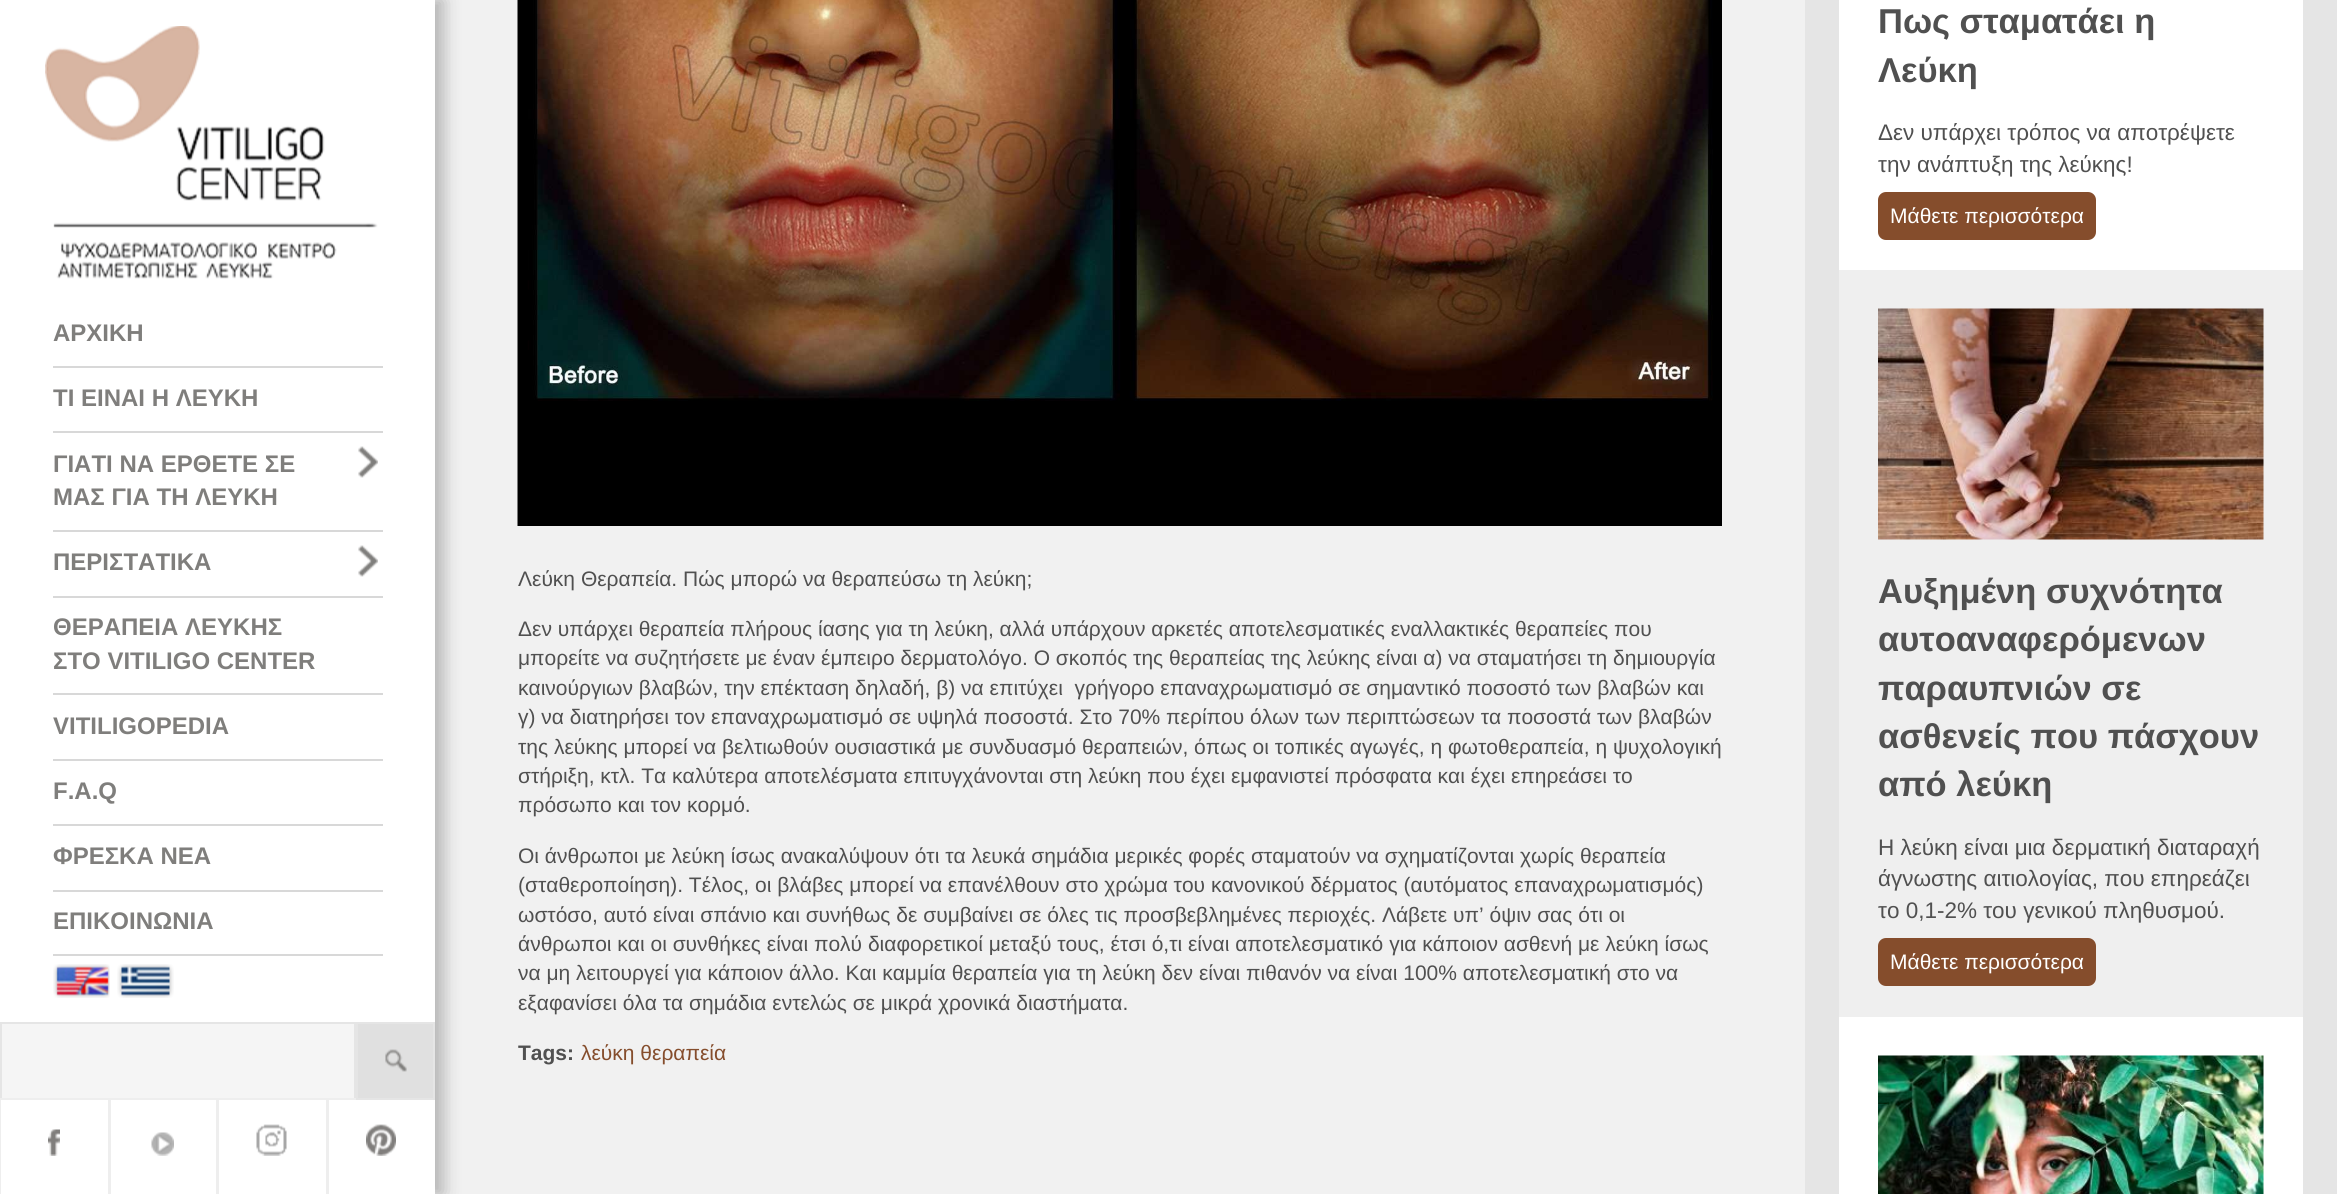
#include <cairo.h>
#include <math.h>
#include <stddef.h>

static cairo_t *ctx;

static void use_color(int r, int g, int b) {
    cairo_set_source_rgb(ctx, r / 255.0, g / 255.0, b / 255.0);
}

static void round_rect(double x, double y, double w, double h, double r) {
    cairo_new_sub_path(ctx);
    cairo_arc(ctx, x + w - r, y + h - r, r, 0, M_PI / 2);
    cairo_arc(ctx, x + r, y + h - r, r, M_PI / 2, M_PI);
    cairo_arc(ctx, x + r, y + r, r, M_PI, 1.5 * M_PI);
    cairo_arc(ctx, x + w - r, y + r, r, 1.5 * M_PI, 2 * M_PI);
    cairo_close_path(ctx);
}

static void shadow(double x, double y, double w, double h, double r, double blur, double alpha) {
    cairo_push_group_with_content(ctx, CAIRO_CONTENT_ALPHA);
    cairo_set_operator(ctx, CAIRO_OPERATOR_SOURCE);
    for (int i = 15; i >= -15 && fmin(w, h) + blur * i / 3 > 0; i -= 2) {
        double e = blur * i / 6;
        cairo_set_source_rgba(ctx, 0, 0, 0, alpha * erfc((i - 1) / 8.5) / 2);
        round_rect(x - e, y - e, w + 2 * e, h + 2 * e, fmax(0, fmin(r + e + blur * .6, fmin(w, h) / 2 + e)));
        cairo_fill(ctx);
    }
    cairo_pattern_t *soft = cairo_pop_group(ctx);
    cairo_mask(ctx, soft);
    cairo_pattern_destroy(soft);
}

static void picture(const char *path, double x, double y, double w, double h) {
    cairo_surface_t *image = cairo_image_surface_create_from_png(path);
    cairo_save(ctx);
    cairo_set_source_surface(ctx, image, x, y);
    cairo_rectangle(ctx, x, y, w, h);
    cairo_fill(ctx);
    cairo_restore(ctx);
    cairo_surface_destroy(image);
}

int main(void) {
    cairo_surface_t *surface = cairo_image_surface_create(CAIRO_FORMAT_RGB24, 2337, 1194);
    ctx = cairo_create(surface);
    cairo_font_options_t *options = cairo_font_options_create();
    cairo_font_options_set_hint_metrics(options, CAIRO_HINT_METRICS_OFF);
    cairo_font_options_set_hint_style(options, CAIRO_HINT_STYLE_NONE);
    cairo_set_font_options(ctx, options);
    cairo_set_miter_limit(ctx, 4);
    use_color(241, 241, 241);
    cairo_paint(ctx);
    use_color(50, 50, 50);
    shadow(8, 0, 435, 1194, 0, 9, 0.34);
    use_color(255, 255, 255);
    cairo_rectangle(ctx, 0, 0, 435, 1194);
    cairo_fill(ctx);
    picture("img1.png", 45, 26, 333, 253);
    use_color(216, 216, 216);
    cairo_rectangle(ctx, 53, 366, 330, 2);
    cairo_fill(ctx);
    cairo_select_font_face(ctx, "Liberation Sans", CAIRO_FONT_SLANT_NORMAL, CAIRO_FONT_WEIGHT_BOLD);
    cairo_set_font_size(ctx, 24);
    use_color(127, 126, 124);
    cairo_move_to(ctx, 53, 341);
    cairo_show_text(ctx, "ΑΡΧΙΚΗ");
    use_color(216, 216, 216);
    cairo_rectangle(ctx, 53, 431, 330, 2);
    cairo_fill(ctx);
    use_color(127, 126, 124);
    cairo_move_to(ctx, 53, 406);
    cairo_show_text(ctx, "ΤΙ ΕΙΝΑΙ Η ΛΕΥΚΗ");
    use_color(216, 216, 216);
    cairo_rectangle(ctx, 53, 530, 330, 2);
    cairo_fill(ctx);
    use_color(127, 126, 124);
    cairo_move_to(ctx, 53, 472);
    cairo_show_text(ctx, "ΓΙΑΤΙ ΝΑ ΕΡΘΕΤΕ ΣΕ");
    picture("img2.png", 358, 446, 20, 32);
    cairo_move_to(ctx, 53, 505);
    cairo_show_text(ctx, "ΜΑΣ ΓΙΑ ΤΗ ΛΕΥΚΗ");
    use_color(216, 216, 216);
    cairo_rectangle(ctx, 53, 596, 330, 2);
    cairo_fill(ctx);
    use_color(127, 126, 124);
    cairo_move_to(ctx, 53, 570);
    cairo_show_text(ctx, "ΠΕΡΙΣΤΑΤΙΚΑ");
    picture("img2.png", 358, 545, 20, 32);
    use_color(216, 216, 216);
    cairo_rectangle(ctx, 53, 693, 330, 2);
    cairo_fill(ctx);
    use_color(127, 126, 124);
    cairo_move_to(ctx, 53, 635);
    cairo_show_text(ctx, "ΘΕΡΑΠΕΙΑ ΛΕΥΚΗΣ");
    cairo_move_to(ctx, 53, 669);
    cairo_show_text(ctx, "ΣΤΟ VITILIGO CENTER");
    use_color(216, 216, 216);
    cairo_rectangle(ctx, 53, 759, 330, 2);
    cairo_fill(ctx);
    use_color(127, 126, 124);
    cairo_move_to(ctx, 53, 734);
    cairo_show_text(ctx, "VITILIGOPEDIA");
    use_color(216, 216, 216);
    cairo_rectangle(ctx, 53, 824, 330, 2);
    cairo_fill(ctx);
    use_color(127, 126, 124);
    cairo_move_to(ctx, 53, 799);
    cairo_show_text(ctx, "F.A.Q");
    use_color(216, 216, 216);
    cairo_rectangle(ctx, 53, 890, 330, 2);
    cairo_fill(ctx);
    use_color(127, 126, 124);
    cairo_move_to(ctx, 53, 864);
    cairo_show_text(ctx, "ΦΡΕΣΚΑ ΝΕΑ");
    use_color(216, 216, 216);
    cairo_rectangle(ctx, 53, 954, 330, 2);
    cairo_fill(ctx);
    use_color(127, 126, 124);
    cairo_move_to(ctx, 53, 929);
    cairo_show_text(ctx, "ΕΠΙΚΟΙΝΩΝΙΑ");
    picture("img3.png", 53, 964, 57, 34);
    picture("img4.png", 117, 964, 57, 34);
    use_color(245, 245, 245);
    cairo_rectangle(ctx, 1, 1023, 354, 76);
    cairo_fill_preserve(ctx);
    use_color(229, 229, 229);
    cairo_stroke(ctx);
    use_color(224, 224, 224);
    cairo_rectangle(ctx, 358, 1024, 75, 74);
    cairo_fill(ctx);
    picture("img5.png", 385, 1049, 22, 23);
    picture("img6.png", 48, 1129, 12, 27);
    cairo_rectangle(ctx, 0, 1099, 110, 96);
    use_color(238, 238, 238);
    cairo_stroke(ctx);
    picture("img7.png", 151, 1132, 23, 24);
    cairo_rectangle(ctx, 109, 1099, 109, 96);
    cairo_stroke(ctx);
    picture("img8.png", 256, 1124, 31, 32);
    cairo_rectangle(ctx, 217, 1099, 111, 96);
    cairo_stroke(ctx);
    picture("img9.png", 366, 1124, 30, 32);
    cairo_save(ctx);
    cairo_rectangle(ctx, 0, 0, 435, 1194);
    cairo_clip(ctx);
    cairo_rectangle(ctx, 327, 1099, 109, 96);
    cairo_stroke(ctx);
    cairo_restore(ctx);
    cairo_rectangle(ctx, 357, 1023, 77, 76);
    use_color(229, 229, 229);
    cairo_stroke(ctx);
    picture("img10.png", 517, 0, 1205, 526);
    cairo_select_font_face(ctx, "Liberation Sans", CAIRO_FONT_SLANT_NORMAL, CAIRO_FONT_WEIGHT_NORMAL);
    cairo_set_font_size(ctx, 21);
    use_color(80, 80, 80);
    cairo_move_to(ctx, 518, 586);
    cairo_show_text(ctx, "Λεύκη Θεραπεία. Πώς μπορώ να θεραπεύσω τη λεύκη;");
    cairo_move_to(ctx, 518, 636);
    cairo_show_text(ctx, "Δεν υπάρχει θεραπεία πλήρους ίασης για τη λεύκη, αλλά υπάρχουν αρκετές αποτελεσματικές εναλλακτικές θεραπείες που");
    cairo_move_to(ctx, 518, 665);
    cairo_show_text(ctx, "μπορείτε να συζητήσετε με έναν έμπειρο δερματολόγο. Ο σκοπός της θεραπείας της λεύκης είναι α) να σταματήσει τη δημιουργία");
    cairo_move_to(ctx, 518, 695);
    cairo_show_text(ctx, "καινούργιων βλαβών, την επέκταση δηλαδή, β) να επιτύχει  γρήγορο επαναχρωματισμό σε σημαντικό ποσοστό των βλαβών και");
    cairo_move_to(ctx, 518, 724);
    cairo_show_text(ctx, "γ) να διατηρήσει τον επαναχρωματισμό σε υψηλά ποσοστά. Στο 70% περίπου όλων των περιπτώσεων τα ποσοστά των βλαβών");
    cairo_move_to(ctx, 518, 754);
    cairo_show_text(ctx, "της λεύκης μπορεί να βελτιωθούν ουσιαστικά με συνδυασμό θεραπειών, όπως οι τοπικές αγωγές, η φωτοθεραπεία, η ψυχολογική");
    cairo_move_to(ctx, 518, 783);
    cairo_show_text(ctx, "στήριξη, κτλ. Τα καλύτερα αποτελέσματα επιτυγχάνονται στη λεύκη που έχει εμφανιστεί πρόσφατα και έχει επηρεάσει το");
    cairo_move_to(ctx, 518, 812);
    cairo_show_text(ctx, "πρόσωπο και τον κορμό.");
    cairo_move_to(ctx, 518, 863);
    cairo_show_text(ctx, "Οι άνθρωποι με λεύκη ίσως ανακαλύψουν ότι τα λευκά σημάδια μερικές φορές σταματούν να σχηματίζονται χωρίς θεραπεία");
    cairo_move_to(ctx, 518, 892);
    cairo_show_text(ctx, "(σταθεροποίηση). Τέλος, οι βλάβες μπορεί να επανέλθουν στο χρώμα του κανονικού δέρματος (αυτόματος επαναχρωματισμός)");
    cairo_move_to(ctx, 518, 922);
    cairo_show_text(ctx, "ωστόσο, αυτό είναι σπάνιο και συνήθως δε συμβαίνει σε όλες τις προσβεβλημένες περιοχές. Λάβετε υπ’ όψιν σας ότι οι");
    cairo_move_to(ctx, 518, 951);
    cairo_show_text(ctx, "άνθρωποι και οι συνθήκες είναι πολύ διαφορετικοί μεταξύ τους, έτσι ό,τι είναι αποτελεσματικό για κάποιον ασθενή με λεύκη ίσως");
    cairo_move_to(ctx, 518, 980);
    cairo_show_text(ctx, "να μη λειτουργεί για κάποιον άλλο. Και καμμία θεραπεία για τη λεύκη δεν είναι πιθανόν να είναι 100% αποτελεσματική στο να");
    cairo_move_to(ctx, 518, 1010);
    cairo_show_text(ctx, "εξαφανίσει όλα τα σημάδια εντελώς σε μικρά χρονικά διαστήματα.");
    cairo_select_font_face(ctx, "Liberation Sans", CAIRO_FONT_SLANT_NORMAL, CAIRO_FONT_WEIGHT_BOLD);
    cairo_move_to(ctx, 518, 1060);
    cairo_show_text(ctx, "Tags:");
    cairo_select_font_face(ctx, "Liberation Sans", CAIRO_FONT_SLANT_NORMAL, CAIRO_FONT_WEIGHT_NORMAL);
    use_color(133, 77, 44);
    cairo_move_to(ctx, 581, 1060);
    cairo_show_text(ctx, "λεύκη θεραπεία");
    use_color(229, 229, 229);
    cairo_rectangle(ctx, 1805, 0, 532, 1194);
    cairo_fill(ctx);
    use_color(255, 255, 255);
    cairo_rectangle(ctx, 1839, 0, 464, 270);
    cairo_fill(ctx);
    cairo_select_font_face(ctx, "Liberation Sans", CAIRO_FONT_SLANT_NORMAL, CAIRO_FONT_WEIGHT_BOLD);
    cairo_set_font_size(ctx, 34.5);
    use_color(80, 80, 80);
    cairo_move_to(ctx, 1878, 33);
    cairo_show_text(ctx, "Πως σταματάει η");
    cairo_move_to(ctx, 1878, 82);
    cairo_show_text(ctx, "Λεύκη");
    cairo_select_font_face(ctx, "Liberation Sans", CAIRO_FONT_SLANT_NORMAL, CAIRO_FONT_WEIGHT_NORMAL);
    cairo_set_font_size(ctx, 22.5);
    cairo_move_to(ctx, 1878, 140);
    cairo_show_text(ctx, "Δεν υπάρχει τρόπος να αποτρέψετε");
    cairo_move_to(ctx, 1878, 172);
    cairo_show_text(ctx, "την ανάπτυξη της λεύκης!");
    use_color(133, 77, 44);
    round_rect(1878, 192, 218, 48, 8);
    cairo_fill(ctx);
    cairo_set_font_size(ctx, 21);
    use_color(255, 255, 255);
    cairo_move_to(ctx, 1890, 223);
    cairo_show_text(ctx, "Μάθετε περισσότερα");
    use_color(239, 239, 239);
    cairo_rectangle(ctx, 1839, 270, 464, 747);
    cairo_fill(ctx);
    picture("img11.png", 1878, 308, 386, 232);
    cairo_select_font_face(ctx, "Liberation Sans", CAIRO_FONT_SLANT_NORMAL, CAIRO_FONT_WEIGHT_BOLD);
    cairo_set_font_size(ctx, 34.5);
    use_color(80, 80, 80);
    cairo_move_to(ctx, 1878, 603);
    cairo_show_text(ctx, "Αυξημένη συχνότητα");
    cairo_move_to(ctx, 1878, 651);
    cairo_show_text(ctx, "αυτοαναφερόμενων");
    cairo_move_to(ctx, 1878, 700);
    cairo_show_text(ctx, "παραυπνιών σε");
    cairo_move_to(ctx, 1878, 748);
    cairo_show_text(ctx, "ασθενείς που πάσχουν");
    cairo_move_to(ctx, 1878, 796);
    cairo_show_text(ctx, "από λεύκη");
    cairo_select_font_face(ctx, "Liberation Sans", CAIRO_FONT_SLANT_NORMAL, CAIRO_FONT_WEIGHT_NORMAL);
    cairo_set_font_size(ctx, 22.5);
    cairo_move_to(ctx, 1878, 855);
    cairo_show_text(ctx, "Η λεύκη είναι μια δερματική διαταραχή");
    cairo_move_to(ctx, 1878, 886);
    cairo_show_text(ctx, "άγνωστης αιτιολογίας, που επηρεάζει");
    cairo_move_to(ctx, 1878, 918);
    cairo_show_text(ctx, "το 0,1-2% του γενικού πληθυσμού.");
    use_color(133, 77, 44);
    round_rect(1878, 938, 218, 48, 8);
    cairo_fill(ctx);
    cairo_set_font_size(ctx, 21);
    use_color(255, 255, 255);
    cairo_move_to(ctx, 1890, 969);
    cairo_show_text(ctx, "Μάθετε περισσότερα");
    cairo_rectangle(ctx, 1839, 1017, 464, 177);
    cairo_fill(ctx);
    picture("img12.png", 1878, 1055, 386, 139);
    cairo_surface_write_to_png(surface, "result.png");
    cairo_font_options_destroy(options);
    cairo_destroy(ctx);
    cairo_surface_destroy(surface);
    return 0;
}
